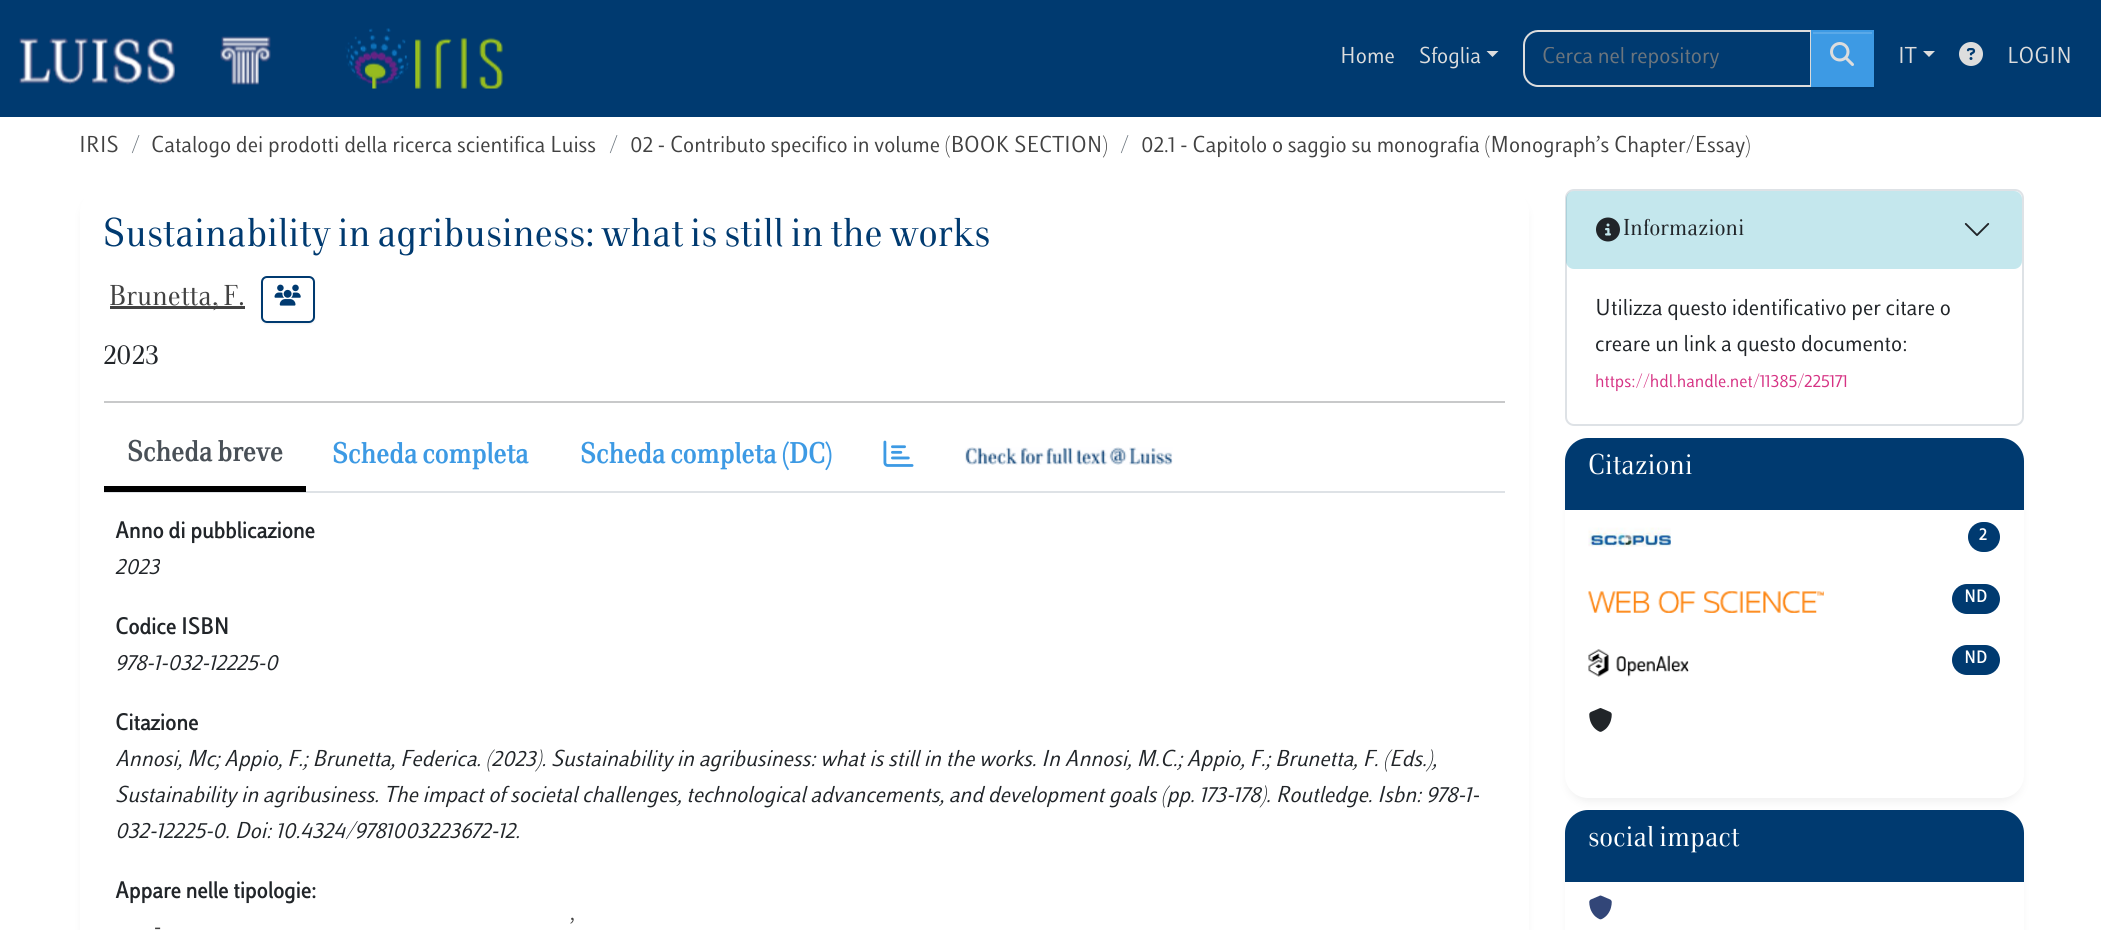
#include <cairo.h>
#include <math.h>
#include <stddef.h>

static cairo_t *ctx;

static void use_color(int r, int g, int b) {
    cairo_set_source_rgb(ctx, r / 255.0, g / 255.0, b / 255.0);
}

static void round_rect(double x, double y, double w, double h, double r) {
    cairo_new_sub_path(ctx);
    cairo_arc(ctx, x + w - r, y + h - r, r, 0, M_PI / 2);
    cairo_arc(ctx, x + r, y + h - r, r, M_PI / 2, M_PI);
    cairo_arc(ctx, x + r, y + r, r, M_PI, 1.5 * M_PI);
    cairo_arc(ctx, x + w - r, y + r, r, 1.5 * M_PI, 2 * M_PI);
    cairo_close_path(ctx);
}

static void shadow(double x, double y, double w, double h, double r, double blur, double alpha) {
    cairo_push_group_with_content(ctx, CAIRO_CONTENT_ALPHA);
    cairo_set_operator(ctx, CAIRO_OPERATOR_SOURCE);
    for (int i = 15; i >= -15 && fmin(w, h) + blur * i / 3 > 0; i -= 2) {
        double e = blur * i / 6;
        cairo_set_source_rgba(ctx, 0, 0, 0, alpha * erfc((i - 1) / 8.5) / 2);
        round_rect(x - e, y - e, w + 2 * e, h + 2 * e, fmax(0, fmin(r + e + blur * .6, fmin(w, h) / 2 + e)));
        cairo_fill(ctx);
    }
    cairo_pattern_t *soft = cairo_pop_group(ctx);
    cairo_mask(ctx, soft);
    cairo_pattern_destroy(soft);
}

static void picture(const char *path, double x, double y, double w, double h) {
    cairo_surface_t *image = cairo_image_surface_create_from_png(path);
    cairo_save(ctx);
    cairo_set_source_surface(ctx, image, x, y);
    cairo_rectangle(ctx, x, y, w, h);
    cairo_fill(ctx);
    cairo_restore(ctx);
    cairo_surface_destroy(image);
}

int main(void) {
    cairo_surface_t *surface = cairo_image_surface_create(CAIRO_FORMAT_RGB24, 2101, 930);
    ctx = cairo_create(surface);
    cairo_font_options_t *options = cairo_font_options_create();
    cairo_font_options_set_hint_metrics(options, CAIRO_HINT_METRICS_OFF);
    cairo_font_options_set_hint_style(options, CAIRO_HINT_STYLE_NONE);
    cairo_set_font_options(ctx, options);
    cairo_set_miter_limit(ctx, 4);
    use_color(255, 255, 255);
    cairo_paint(ctx);
    use_color(0, 58, 112);
    cairo_rectangle(ctx, 0, 0, 2101, 117);
    cairo_fill(ctx);
    picture("img1.png", 19, 36, 252, 49);
    picture("img2.png", 345, 28, 158, 61);
    cairo_select_font_face(ctx, "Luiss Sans", CAIRO_FONT_SLANT_NORMAL, CAIRO_FONT_WEIGHT_NORMAL);
    cairo_set_font_size(ctx, 24);
    use_color(221, 221, 221);
    cairo_move_to(ctx, 1340, 63);
    cairo_show_text(ctx, "Home");
    cairo_move_to(ctx, 1419, 63);
    cairo_show_text(ctx, "Sfoglia");
    cairo_new_path(ctx);
    cairo_move_to(ctx, 1486.5, 51);
    cairo_line_to(ctx, 1498.5, 51);
    cairo_line_to(ctx, 1492.5, 57);
    cairo_close_path(ctx);
    cairo_fill(ctx);
    cairo_new_path(ctx);
    cairo_move_to(ctx, 1538, 31);
    cairo_line_to(ctx, 1811, 31);
    cairo_line_to(ctx, 1811, 86);
    cairo_line_to(ctx, 1538, 86);
    cairo_curve_to(ctx, 1530.5, 86, 1524, 79.5, 1524, 72);
    cairo_line_to(ctx, 1524, 45);
    cairo_curve_to(ctx, 1524, 37.5, 1530.5, 31, 1538, 31);
    cairo_close_path(ctx);
    cairo_stroke(ctx);
    cairo_save(ctx);
    cairo_rectangle(ctx, 1542, 47, 228, 22);
    cairo_clip(ctx);
    use_color(108, 117, 125);
    cairo_move_to(ctx, 1542, 63);
    cairo_show_text(ctx, "Cerca nel repository");
    cairo_restore(ctx);
    use_color(0, 0, 0);
    shadow(1811, 32, 63, 57, 0, 1, 0.07);
    use_color(61, 154, 228);
    cairo_rectangle(ctx, 1813, 34, 59, 51);
    cairo_fill(ctx);
    use_color(90, 169, 232);
    cairo_rectangle(ctx, 1812, 32, 60, 2);
    cairo_fill(ctx);
    cairo_rectangle(ctx, 1812, 31, 61, 55);
    use_color(61, 154, 228);
    cairo_stroke(ctx);
    picture("img3.png", 1830, 42, 24, 24);
    use_color(221, 221, 221);
    cairo_move_to(ctx, 1898, 63);
    cairo_show_text(ctx, "IT");
    cairo_new_path(ctx);
    cairo_move_to(ctx, 1923, 51);
    cairo_line_to(ctx, 1935, 51);
    cairo_line_to(ctx, 1929, 57);
    cairo_close_path(ctx);
    cairo_fill(ctx);
    picture("img4.png", 1959, 42, 24, 24);
    cairo_move_to(ctx, 2007, 63);
    cairo_show_text(ctx, "LOGIN");
    use_color(66, 66, 66);
    cairo_move_to(ctx, 79, 152);
    cairo_show_text(ctx, "IRIS");
    use_color(108, 117, 125);
    cairo_move_to(ctx, 131, 152);
    cairo_show_text(ctx, "/");
    use_color(66, 66, 66);
    cairo_move_to(ctx, 151, 152);
    cairo_show_text(ctx, "Catalogo dei prodotti della ricerca scientifica Luiss");
    use_color(108, 117, 125);
    cairo_move_to(ctx, 609, 152);
    cairo_show_text(ctx, "/");
    use_color(66, 66, 66);
    cairo_move_to(ctx, 630, 152);
    cairo_show_text(ctx, "02 - Contributo specifico in volume (BOOK SECTION)");
    use_color(108, 117, 125);
    cairo_move_to(ctx, 1120, 152);
    cairo_show_text(ctx, "/");
    use_color(66, 66, 66);
    cairo_move_to(ctx, 1141, 152);
    cairo_show_text(ctx, "02.1 - Capitolo o saggio su monografia (Monograph’s Chapter/Essay)");
    use_color(238, 238, 238);
    shadow(83, 198, 1443, 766, 20, 4.5, 1);
    use_color(255, 255, 255);
    round_rect(80, 189, 1449, 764, 23);
    cairo_fill(ctx);
    cairo_select_font_face(ctx, "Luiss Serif", CAIRO_FONT_SLANT_NORMAL, CAIRO_FONT_WEIGHT_NORMAL);
    cairo_set_font_size(ctx, 42);
    use_color(0, 58, 112);
    cairo_move_to(ctx, 103, 246);
    cairo_show_text(ctx, "Sustainability in agribusiness: what is still in the works");
    use_color(66, 66, 66);
    cairo_rectangle(ctx, 110, 306, 135, 3);
    cairo_fill(ctx);
    cairo_set_font_size(ctx, 30);
    cairo_move_to(ctx, 109, 305);
    cairo_show_text(ctx, "Brunetta, F.");
    cairo_save(ctx);
    cairo_set_fill_rule(ctx, CAIRO_FILL_RULE_EVEN_ODD);
    cairo_new_path(ctx);
    cairo_move_to(ctx, 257, 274);
    cairo_line_to(ctx, 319, 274);
    cairo_line_to(ctx, 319, 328);
    cairo_line_to(ctx, 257, 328);
    cairo_close_path(ctx);
    cairo_move_to(ctx, 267, 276);
    cairo_line_to(ctx, 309, 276);
    cairo_curve_to(ctx, 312.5, 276, 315, 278.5, 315, 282);
    cairo_line_to(ctx, 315, 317);
    cairo_curve_to(ctx, 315, 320.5, 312.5, 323, 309, 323);
    cairo_line_to(ctx, 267, 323);
    cairo_curve_to(ctx, 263.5, 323, 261, 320.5, 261, 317);
    cairo_line_to(ctx, 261, 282);
    cairo_curve_to(ctx, 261, 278.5, 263.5, 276, 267, 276);
    cairo_close_path(ctx);
    cairo_clip(ctx);
    use_color(0, 0, 0);
    shadow(261, 278, 54, 46, 6, 1, 0.07);
    cairo_restore(ctx);
    round_rect(262, 277, 52, 45, 5);
    use_color(0, 58, 112);
    cairo_stroke(ctx);
    picture("img5.png", 274, 284, 27, 22);
    use_color(33, 37, 41);
    cairo_move_to(ctx, 103, 364);
    cairo_show_text(ctx, "2023");
    use_color(200, 201, 202);
    cairo_rectangle(ctx, 104, 401, 1401, 2);
    cairo_fill(ctx);
    use_color(222, 226, 230);
    cairo_rectangle(ctx, 104, 491, 1401, 2);
    cairo_fill(ctx);
    use_color(0, 0, 0);
    cairo_rectangle(ctx, 104, 486, 202, 6);
    cairo_fill(ctx);
    cairo_select_font_face(ctx, "Luiss Serif", CAIRO_FONT_SLANT_NORMAL, CAIRO_FONT_WEIGHT_BOLD);
    use_color(73, 80, 87);
    cairo_move_to(ctx, 127, 461);
    cairo_show_text(ctx, "Scheda breve");
    use_color(61, 154, 228);
    cairo_move_to(ctx, 332, 463);
    cairo_show_text(ctx, "Scheda completa");
    cairo_move_to(ctx, 580, 463);
    cairo_show_text(ctx, "Scheda completa (DC)");
    picture("img6.png", 883, 440, 31, 27);
    picture("img7.png", 965, 447, 208, 18);
    cairo_select_font_face(ctx, "Luiss Sans", CAIRO_FONT_SLANT_NORMAL, CAIRO_FONT_WEIGHT_BOLD);
    cairo_set_font_size(ctx, 24);
    use_color(33, 37, 41);
    cairo_move_to(ctx, 115, 538);
    cairo_show_text(ctx, "Anno di pubblicazione");
    cairo_select_font_face(ctx, "Luiss Sans", CAIRO_FONT_SLANT_ITALIC, CAIRO_FONT_WEIGHT_NORMAL);
    cairo_move_to(ctx, 115, 574);
    cairo_show_text(ctx, "2023");
    cairo_select_font_face(ctx, "Luiss Sans", CAIRO_FONT_SLANT_NORMAL, CAIRO_FONT_WEIGHT_BOLD);
    cairo_move_to(ctx, 115, 634);
    cairo_show_text(ctx, "Codice ISBN");
    cairo_select_font_face(ctx, "Luiss Sans", CAIRO_FONT_SLANT_ITALIC, CAIRO_FONT_WEIGHT_NORMAL);
    cairo_move_to(ctx, 115, 670);
    cairo_show_text(ctx, "978-1-032-12225-0");
    cairo_select_font_face(ctx, "Luiss Sans", CAIRO_FONT_SLANT_NORMAL, CAIRO_FONT_WEIGHT_BOLD);
    cairo_move_to(ctx, 115, 730);
    cairo_show_text(ctx, "Citazione");
    cairo_select_font_face(ctx, "Luiss Sans", CAIRO_FONT_SLANT_ITALIC, CAIRO_FONT_WEIGHT_NORMAL);
    cairo_move_to(ctx, 115, 766);
    cairo_show_text(ctx, "Annosi, Mc; Appio, F.; Brunetta, Federica. (2023). Sustainability in agribusiness: what is still in the works. In Annosi, M.C.; Appio, F.; Brunetta, F. (Eds.),");
    cairo_move_to(ctx, 115, 802);
    cairo_show_text(ctx, "Sustainability in agribusiness. The impact of societal challenges, technological advancements, and development goals (pp. 173-178). Routledge. Isbn: 978-1-");
    cairo_move_to(ctx, 115, 838);
    cairo_show_text(ctx, "032-12225-0. Doi: 10.4324/9781003223672-12.");
    cairo_select_font_face(ctx, "Luiss Sans", CAIRO_FONT_SLANT_NORMAL, CAIRO_FONT_WEIGHT_BOLD);
    cairo_move_to(ctx, 115, 898);
    cairo_show_text(ctx, "Appare nelle tipologie:");
    cairo_select_font_face(ctx, "Luiss Sans", CAIRO_FONT_SLANT_NORMAL, CAIRO_FONT_WEIGHT_NORMAL);
    use_color(66, 66, 66);
    cairo_move_to(ctx, 570, 934);
    cairo_show_text(ctx, "’");
    cairo_move_to(ctx, 154, 934);
    cairo_show_text(ctx, "-");
    round_rect(1566, 190, 457, 235, 8);
    use_color(222, 226, 230);
    cairo_stroke(ctx);
    cairo_set_source_rgba(ctx, 0.09, 0.635, 0.722, 0.25);
    round_rect(1566, 191, 456, 78, 8);
    cairo_fill(ctx);
    picture("img8.png", 1596, 217, 24, 25);
    cairo_select_font_face(ctx, "Luiss Serif", CAIRO_FONT_SLANT_NORMAL, CAIRO_FONT_WEIGHT_NORMAL);
    use_color(33, 37, 41);
    cairo_move_to(ctx, 1623, 235);
    cairo_show_text(ctx, "Informazioni");
    picture("img9.png", 1964, 223, 26, 13);
    cairo_select_font_face(ctx, "Luiss Sans", CAIRO_FONT_SLANT_NORMAL, CAIRO_FONT_WEIGHT_NORMAL);
    cairo_move_to(ctx, 1595, 315);
    cairo_show_text(ctx, "Utilizza questo identificativo per citare o");
    cairo_move_to(ctx, 1595, 351);
    cairo_show_text(ctx, "creare un link a questo documento:");
    cairo_set_font_size(ctx, 19.25);
    use_color(214, 51, 132);
    cairo_move_to(ctx, 1595, 387);
    cairo_show_text(ctx, "https://hdl.handle.net/11385/225171");
    use_color(238, 238, 238);
    shadow(1568, 447, 453, 354, 20, 4.5, 1);
    use_color(255, 255, 255);
    round_rect(1565, 438, 459, 360, 23);
    cairo_fill(ctx);
    use_color(0, 58, 112);
    cairo_new_path(ctx);
    cairo_move_to(ctx, 1588, 438);
    cairo_line_to(ctx, 2001, 438);
    cairo_curve_to(ctx, 2013.5, 438, 2024, 448.5, 2024, 461);
    cairo_line_to(ctx, 2024, 510);
    cairo_line_to(ctx, 1565, 510);
    cairo_line_to(ctx, 1565, 461);
    cairo_curve_to(ctx, 1565, 448.5, 1575.5, 438, 1588, 438);
    cairo_close_path(ctx);
    cairo_fill(ctx);
    cairo_select_font_face(ctx, "Luiss Serif", CAIRO_FONT_SLANT_NORMAL, CAIRO_FONT_WEIGHT_NORMAL);
    cairo_set_font_size(ctx, 30);
    use_color(255, 255, 255);
    cairo_move_to(ctx, 1588, 474);
    cairo_show_text(ctx, "Citazioni");
    picture("img10.png", 1588, 527, 83, 20);
    use_color(0, 58, 112);
    round_rect(1968, 522, 32, 30, 15);
    cairo_fill(ctx);
    cairo_select_font_face(ctx, "Luiss Sans", CAIRO_FONT_SLANT_NORMAL, CAIRO_FONT_WEIGHT_BOLD);
    cairo_set_font_size(ctx, 18);
    use_color(255, 255, 255);
    cairo_move_to(ctx, 1979, 540);
    cairo_show_text(ctx, "2");
    picture("img11.png", 1588, 591, 236, 22);
    use_color(0, 58, 112);
    round_rect(1952, 584, 48, 30, 15);
    cairo_fill(ctx);
    use_color(255, 255, 255);
    cairo_move_to(ctx, 1964, 602);
    cairo_show_text(ctx, "ND");
    picture("img12.png", 1588, 649, 101, 28);
    use_color(0, 58, 112);
    round_rect(1952, 645, 48, 30, 15);
    cairo_fill(ctx);
    use_color(255, 255, 255);
    cairo_move_to(ctx, 1964, 663);
    cairo_show_text(ctx, "ND");
    picture("img13.png", 1589, 708, 23, 24);
    use_color(238, 238, 238);
    shadow(1568, 819, 453, 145, 20, 4.5, 1);
    use_color(255, 255, 255);
    round_rect(1565, 810, 459, 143, 23);
    cairo_fill(ctx);
    use_color(0, 58, 112);
    cairo_new_path(ctx);
    cairo_move_to(ctx, 1588, 810);
    cairo_line_to(ctx, 2001, 810);
    cairo_curve_to(ctx, 2013.5, 810, 2024, 820.5, 2024, 833);
    cairo_line_to(ctx, 2024, 882);
    cairo_line_to(ctx, 1565, 882);
    cairo_line_to(ctx, 1565, 833);
    cairo_curve_to(ctx, 1565, 820.5, 1575.5, 810, 1588, 810);
    cairo_close_path(ctx);
    cairo_fill(ctx);
    cairo_select_font_face(ctx, "Luiss Serif", CAIRO_FONT_SLANT_NORMAL, CAIRO_FONT_WEIGHT_NORMAL);
    cairo_set_font_size(ctx, 30);
    use_color(255, 255, 255);
    cairo_move_to(ctx, 1588, 846);
    cairo_show_text(ctx, "social impact");
    picture("img14.png", 1589, 895, 23, 25);
    cairo_surface_write_to_png(surface, "result.png");
    cairo_font_options_destroy(options);
    cairo_destroy(ctx);
    cairo_surface_destroy(surface);
    return 0;
}
